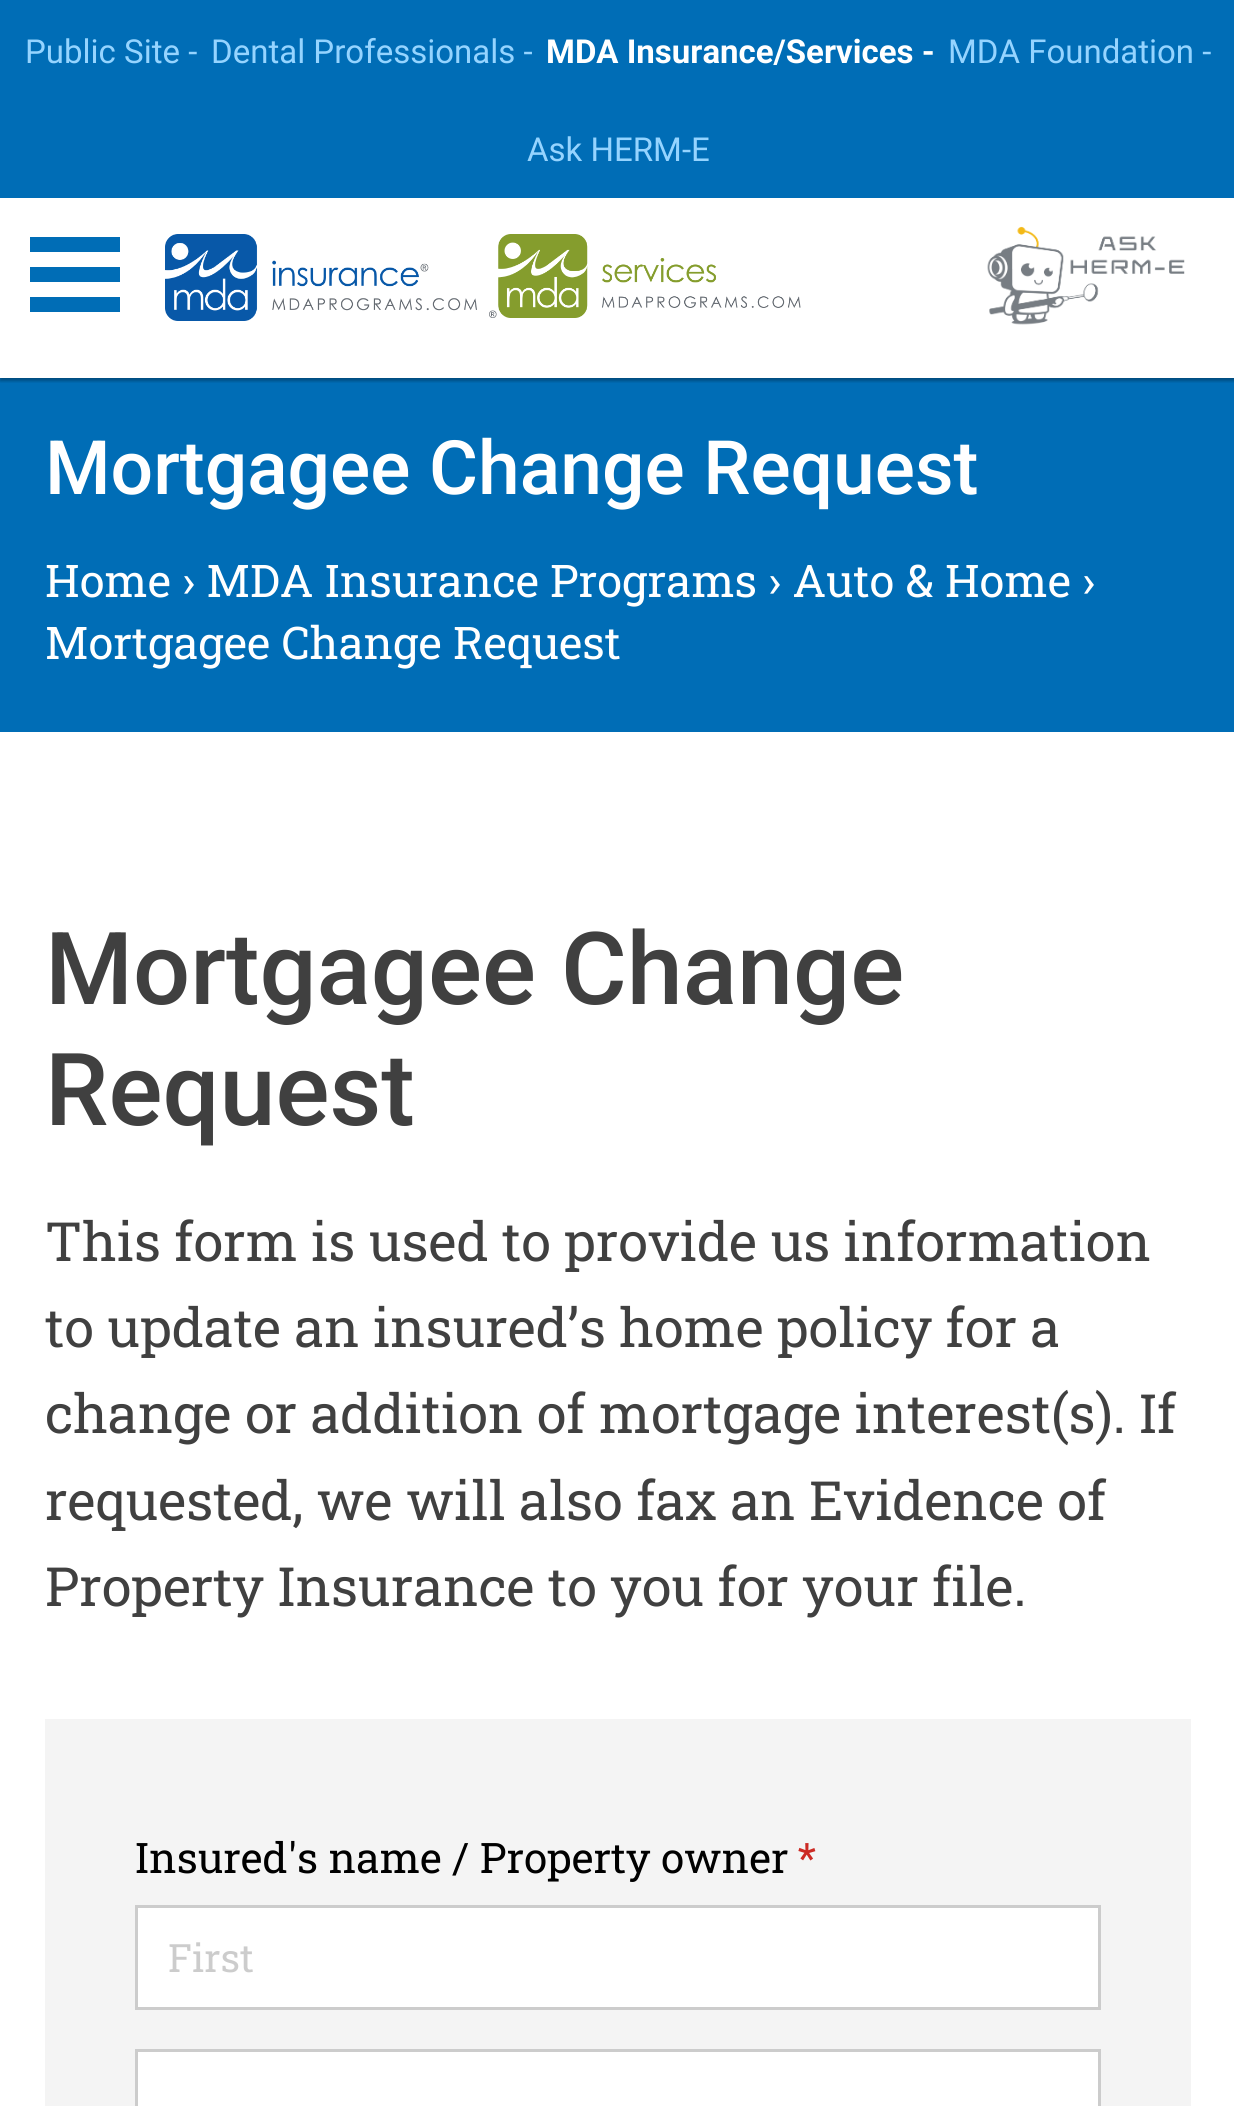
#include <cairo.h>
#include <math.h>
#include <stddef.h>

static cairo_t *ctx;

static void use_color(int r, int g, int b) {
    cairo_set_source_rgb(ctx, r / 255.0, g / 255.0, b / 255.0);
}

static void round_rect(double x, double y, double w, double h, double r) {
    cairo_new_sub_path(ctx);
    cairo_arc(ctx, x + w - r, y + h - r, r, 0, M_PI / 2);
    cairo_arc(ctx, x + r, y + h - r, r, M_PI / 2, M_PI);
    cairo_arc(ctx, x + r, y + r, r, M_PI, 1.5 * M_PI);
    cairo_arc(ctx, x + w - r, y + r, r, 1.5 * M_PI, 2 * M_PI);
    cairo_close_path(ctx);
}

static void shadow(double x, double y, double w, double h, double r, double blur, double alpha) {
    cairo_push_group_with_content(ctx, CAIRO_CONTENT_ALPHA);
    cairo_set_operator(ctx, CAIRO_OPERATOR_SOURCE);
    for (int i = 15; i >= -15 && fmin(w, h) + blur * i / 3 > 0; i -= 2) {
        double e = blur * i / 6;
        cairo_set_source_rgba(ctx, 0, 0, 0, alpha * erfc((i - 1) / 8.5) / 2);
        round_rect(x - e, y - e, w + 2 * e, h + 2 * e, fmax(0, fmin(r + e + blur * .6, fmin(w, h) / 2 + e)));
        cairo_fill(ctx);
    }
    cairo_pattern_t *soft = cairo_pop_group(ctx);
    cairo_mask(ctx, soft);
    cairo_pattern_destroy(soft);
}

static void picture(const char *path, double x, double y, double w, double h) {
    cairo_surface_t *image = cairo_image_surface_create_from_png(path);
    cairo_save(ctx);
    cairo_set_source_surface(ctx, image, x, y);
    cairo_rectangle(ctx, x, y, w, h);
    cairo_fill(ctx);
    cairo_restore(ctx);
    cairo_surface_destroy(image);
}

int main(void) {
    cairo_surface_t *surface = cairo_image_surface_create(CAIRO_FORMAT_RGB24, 1234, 2106);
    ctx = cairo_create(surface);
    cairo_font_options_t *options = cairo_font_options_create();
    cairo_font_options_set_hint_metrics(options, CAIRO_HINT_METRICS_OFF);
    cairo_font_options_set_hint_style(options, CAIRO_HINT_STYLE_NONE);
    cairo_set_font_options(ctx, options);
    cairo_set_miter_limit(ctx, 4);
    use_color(255, 255, 255);
    cairo_paint(ctx);
    use_color(0, 109, 182);
    cairo_rectangle(ctx, 0, 0, 1234, 198);
    cairo_fill(ctx);
    cairo_select_font_face(ctx, "Roboto", CAIRO_FONT_SLANT_NORMAL, CAIRO_FONT_WEIGHT_NORMAL);
    cairo_set_font_size(ctx, 33);
    use_color(149, 212, 255);
    cairo_move_to(ctx, 25, 63);
    cairo_show_text(ctx, "Public Site -");
    cairo_move_to(ctx, 211, 63);
    cairo_show_text(ctx, "Dental Professionals -");
    cairo_select_font_face(ctx, "Roboto", CAIRO_FONT_SLANT_NORMAL, CAIRO_FONT_WEIGHT_BOLD);
    use_color(255, 255, 255);
    cairo_move_to(ctx, 546, 63);
    cairo_show_text(ctx, "MDA Insurance/Services -");
    cairo_select_font_face(ctx, "Roboto", CAIRO_FONT_SLANT_NORMAL, CAIRO_FONT_WEIGHT_NORMAL);
    use_color(149, 212, 255);
    cairo_move_to(ctx, 948, 63);
    cairo_show_text(ctx, "MDA Foundation -");
    cairo_move_to(ctx, 527, 161);
    cairo_show_text(ctx, "Ask HERM-E");
    use_color(0, 109, 182);
    cairo_rectangle(ctx, 0, 378, 1234, 354);
    cairo_fill(ctx);
    cairo_save(ctx);
    cairo_rectangle(ctx, 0, 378, 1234, 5);
    cairo_clip(ctx);
    use_color(0, 0, 0);
    shadow(0, 201, 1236, 180, 0, 1.5, 0.3);
    cairo_restore(ctx);
    cairo_rectangle(ctx, 30, 237, 90, 15);
    cairo_fill(ctx);
    cairo_rectangle(ctx, 30, 267, 90, 15);
    cairo_fill(ctx);
    cairo_rectangle(ctx, 30, 297, 90, 15);
    cairo_fill(ctx);
    picture("img1.png", 165, 234, 312, 87);
    picture("img2.png", 489, 234, 312, 84);
    picture("img3.png", 987, 226, 198, 99);
    cairo_select_font_face(ctx, "Roboto Medium", CAIRO_FONT_SLANT_NORMAL, CAIRO_FONT_WEIGHT_NORMAL);
    cairo_set_font_size(ctx, 75);
    use_color(255, 255, 255);
    cairo_move_to(ctx, 45, 494);
    cairo_show_text(ctx, "Mortgagee Change Request");
    cairo_select_font_face(ctx, "Roboto Slab", CAIRO_FONT_SLANT_NORMAL, CAIRO_FONT_WEIGHT_NORMAL);
    cairo_set_font_size(ctx, 45);
    cairo_move_to(ctx, 45, 597);
    cairo_show_text(ctx, "Home › MDA Insurance Programs › Auto & Home ›");
    cairo_move_to(ctx, 45, 659);
    cairo_show_text(ctx, "Mortgagee Change Request");
    cairo_select_font_face(ctx, "Roboto Medium", CAIRO_FONT_SLANT_NORMAL, CAIRO_FONT_WEIGHT_NORMAL);
    cairo_set_font_size(ctx, 100.75);
    use_color(64, 64, 64);
    cairo_move_to(ctx, 45, 1004);
    cairo_show_text(ctx, "Mortgagee Change");
    cairo_move_to(ctx, 45, 1125);
    cairo_show_text(ctx, "Request");
    cairo_select_font_face(ctx, "Roboto Slab", CAIRO_FONT_SLANT_NORMAL, CAIRO_FONT_WEIGHT_NORMAL);
    cairo_set_font_size(ctx, 54);
    cairo_move_to(ctx, 45, 1261);
    cairo_show_text(ctx, "This form is used to provide us information");
    cairo_move_to(ctx, 45, 1347);
    cairo_show_text(ctx, "to update an insured’s home policy for a");
    cairo_move_to(ctx, 45, 1433);
    cairo_show_text(ctx, "change or addition of mortgage interest(s). If");
    cairo_move_to(ctx, 45, 1520);
    cairo_show_text(ctx, "requested, we will also fax an Evidence of");
    cairo_move_to(ctx, 45, 1606);
    cairo_show_text(ctx, "Property Insurance to you for your file.");
    use_color(244, 244, 244);
    cairo_rectangle(ctx, 45, 1719, 1146, 387);
    cairo_fill(ctx);
    cairo_set_font_size(ctx, 42.1);
    use_color(0, 0, 0);
    cairo_move_to(ctx, 135, 1873);
    cairo_show_text(ctx, "Insured's name / Property owner");
    use_color(204, 42, 36);
    cairo_move_to(ctx, 797, 1873);
    cairo_show_text(ctx, "*");
    use_color(255, 255, 255);
    cairo_rectangle(ctx, 136.5, 1906.5, 963, 102);
    cairo_fill_preserve(ctx);
    use_color(204, 204, 204);
    cairo_set_line_width(ctx, 3);
    cairo_stroke(ctx);
    cairo_set_font_size(ctx, 39);
    cairo_move_to(ctx, 168, 1972);
    cairo_show_text(ctx, "First");
    use_color(255, 255, 255);
    cairo_rectangle(ctx, 136.5, 2050.5, 963, 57);
    cairo_fill_preserve(ctx);
    use_color(204, 204, 204);
    cairo_stroke(ctx);
    cairo_surface_write_to_png(surface, "result.png");
    cairo_font_options_destroy(options);
    cairo_destroy(ctx);
    cairo_surface_destroy(surface);
    return 0;
}
